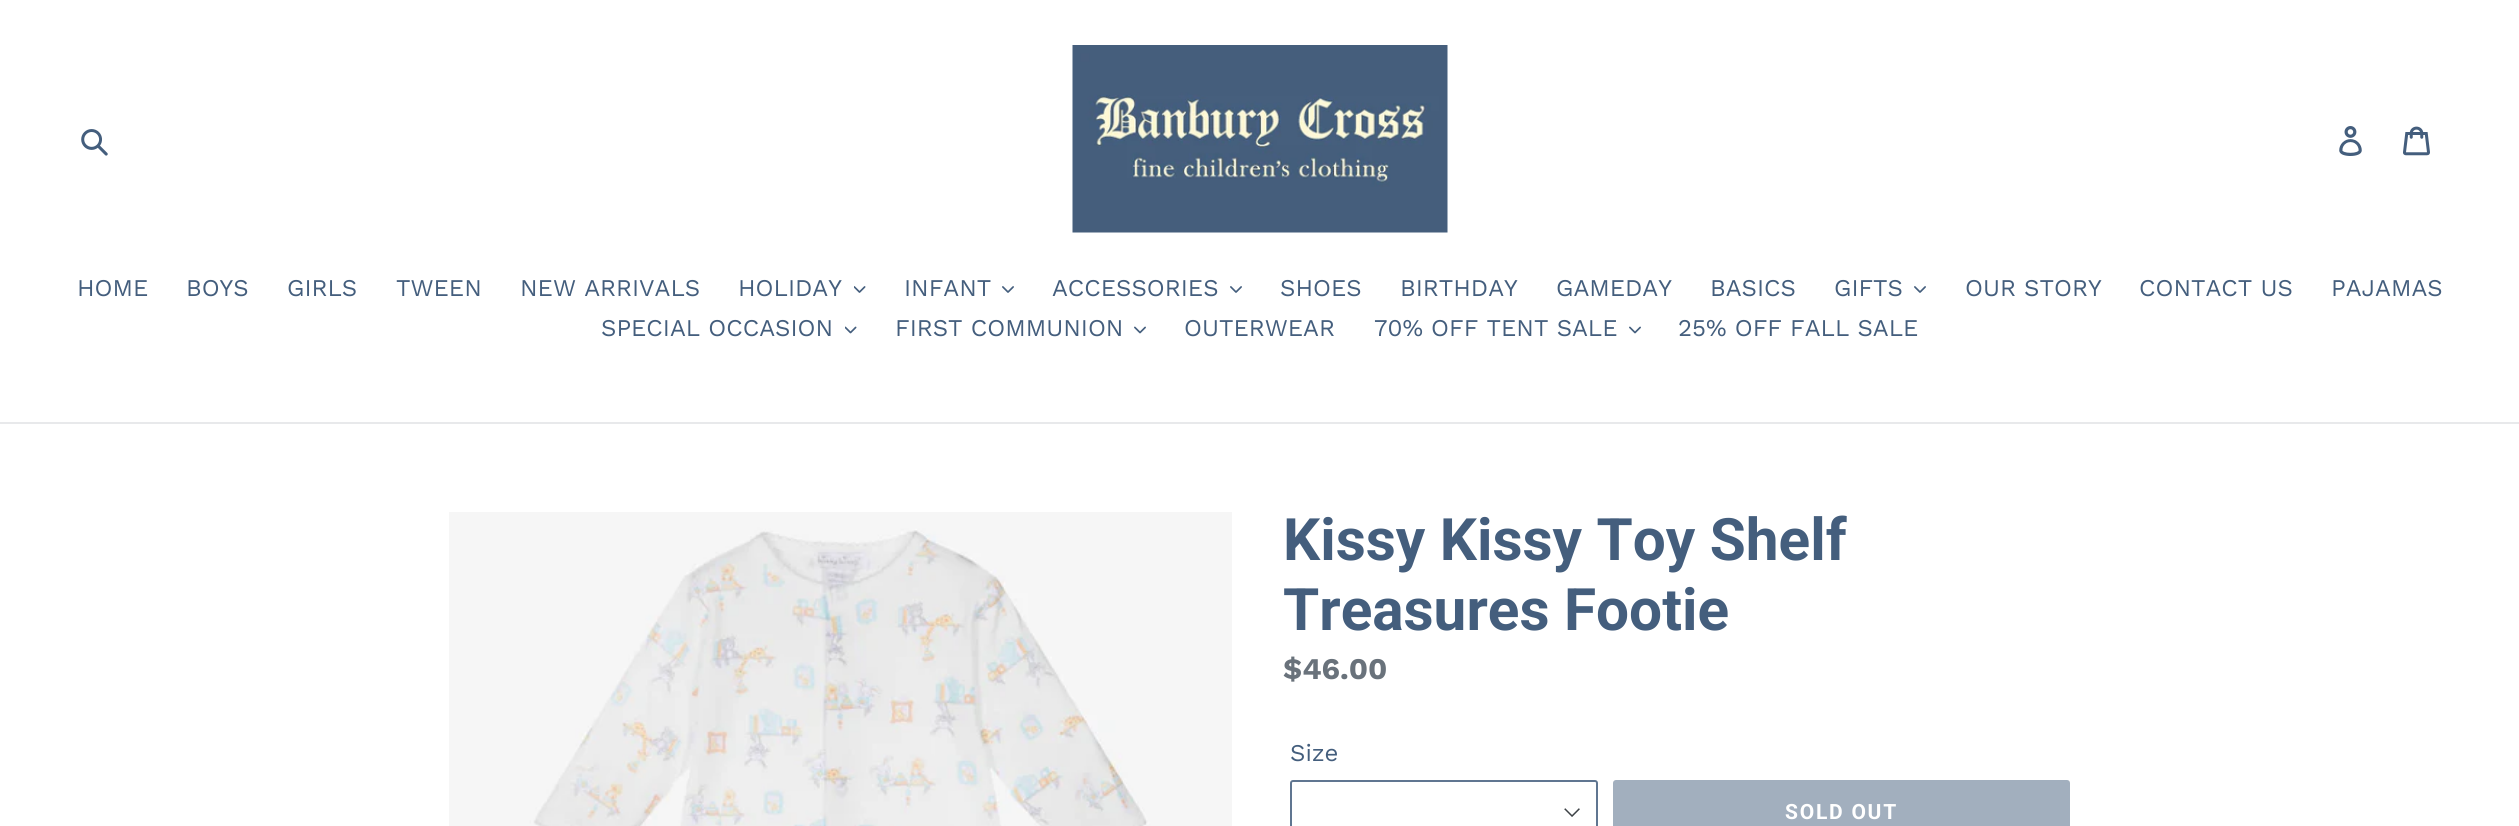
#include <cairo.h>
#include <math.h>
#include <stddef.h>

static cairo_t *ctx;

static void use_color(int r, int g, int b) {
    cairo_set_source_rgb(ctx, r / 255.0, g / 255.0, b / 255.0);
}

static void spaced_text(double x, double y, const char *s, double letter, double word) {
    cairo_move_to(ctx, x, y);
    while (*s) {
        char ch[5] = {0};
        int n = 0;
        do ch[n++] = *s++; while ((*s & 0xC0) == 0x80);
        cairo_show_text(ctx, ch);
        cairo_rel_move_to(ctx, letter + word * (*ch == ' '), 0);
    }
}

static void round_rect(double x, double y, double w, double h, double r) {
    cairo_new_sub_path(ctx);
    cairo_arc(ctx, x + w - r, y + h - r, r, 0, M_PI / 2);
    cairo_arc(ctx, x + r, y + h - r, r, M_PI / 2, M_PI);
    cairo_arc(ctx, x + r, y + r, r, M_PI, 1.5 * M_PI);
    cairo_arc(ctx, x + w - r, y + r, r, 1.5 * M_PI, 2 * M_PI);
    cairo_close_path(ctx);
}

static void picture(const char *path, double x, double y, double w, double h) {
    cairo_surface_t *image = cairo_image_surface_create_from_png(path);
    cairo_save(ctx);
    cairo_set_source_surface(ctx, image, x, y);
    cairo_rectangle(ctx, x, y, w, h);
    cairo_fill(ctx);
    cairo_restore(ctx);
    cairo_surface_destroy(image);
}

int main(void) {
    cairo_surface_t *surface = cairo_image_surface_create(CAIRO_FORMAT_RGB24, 2519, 826);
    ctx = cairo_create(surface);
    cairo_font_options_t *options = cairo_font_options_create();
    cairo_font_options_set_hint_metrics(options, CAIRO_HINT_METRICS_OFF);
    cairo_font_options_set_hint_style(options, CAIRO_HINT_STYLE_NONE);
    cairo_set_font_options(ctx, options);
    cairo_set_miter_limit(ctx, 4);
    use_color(255, 255, 255);
    cairo_paint(ctx);
    picture("img1.png", 81, 129, 27, 27);
    picture("img2.png", 1072, 45, 376, 188);
    picture("img3.png", 2339, 126, 23, 30);
    picture("img4.png", 2403, 126, 27, 30);
    use_color(232, 233, 235);
    cairo_rectangle(ctx, 0, 422, 2519, 2);
    cairo_fill(ctx);
    cairo_select_font_face(ctx, "Work Sans", CAIRO_FONT_SLANT_NORMAL, CAIRO_FONT_WEIGHT_NORMAL);
    cairo_set_font_size(ctx, 24);
    use_color(68, 94, 125);
    cairo_move_to(ctx, 77, 296);
    cairo_show_text(ctx, "HOME");
    cairo_move_to(ctx, 186, 296);
    cairo_show_text(ctx, "BOYS");
    cairo_move_to(ctx, 287, 296);
    cairo_show_text(ctx, "GIRLS");
    cairo_move_to(ctx, 396, 296);
    cairo_show_text(ctx, "TWEEN");
    cairo_move_to(ctx, 520, 296);
    cairo_show_text(ctx, "NEW ARRIVALS");
    cairo_move_to(ctx, 738, 296);
    cairo_show_text(ctx, "HOLIDAY");
    picture("img5.png", 854, 286, 12, 7);
    cairo_move_to(ctx, 904, 296);
    cairo_show_text(ctx, "INFANT");
    picture("img6.png", 1002, 286, 12, 7);
    cairo_move_to(ctx, 1052, 296);
    cairo_show_text(ctx, "ACCESSORIES");
    picture("img6.png", 1230, 286, 12, 7);
    cairo_move_to(ctx, 1280, 296);
    cairo_show_text(ctx, "SHOES");
    cairo_move_to(ctx, 1400, 296);
    cairo_show_text(ctx, "BIRTHDAY");
    cairo_move_to(ctx, 1556, 296);
    cairo_show_text(ctx, "GAMEDAY");
    cairo_move_to(ctx, 1710, 296);
    cairo_show_text(ctx, "BASICS");
    cairo_move_to(ctx, 1834, 296);
    cairo_show_text(ctx, "GIFTS");
    picture("img6.png", 1914, 286, 12, 7);
    cairo_move_to(ctx, 1965, 296);
    cairo_show_text(ctx, "OUR STORY");
    cairo_move_to(ctx, 2139, 296);
    cairo_show_text(ctx, "CONTACT US");
    cairo_move_to(ctx, 2331, 296);
    cairo_show_text(ctx, "PAJAMAS");
    cairo_move_to(ctx, 601, 336);
    cairo_show_text(ctx, "SPECIAL OCCASION");
    picture("img7.png", 845, 326, 12, 8);
    cairo_move_to(ctx, 895, 336);
    cairo_show_text(ctx, "FIRST COMMUNION");
    picture("img8.png", 1134, 326, 12, 8);
    cairo_move_to(ctx, 1184, 336);
    cairo_show_text(ctx, "OUTERWEAR");
    cairo_move_to(ctx, 1374, 336);
    cairo_show_text(ctx, "70% OFF TENT SALE");
    picture("img8.png", 1629, 326, 12, 8);
    cairo_move_to(ctx, 1678, 336);
    cairo_show_text(ctx, "25% OFF FALL SALE");
    picture("img9.png", 449, 512, 783, 314);
    cairo_select_font_face(ctx, "Roboto", CAIRO_FONT_SLANT_NORMAL, CAIRO_FONT_WEIGHT_BOLD);
    cairo_set_font_size(ctx, 58.5);
    cairo_move_to(ctx, 1283, 560);
    cairo_show_text(ctx, "Kissy Kissy Toy Shelf");
    cairo_move_to(ctx, 1283, 630);
    cairo_show_text(ctx, "Treasures Footie");
    cairo_select_font_face(ctx, "Work Sans", CAIRO_FONT_SLANT_NORMAL, CAIRO_FONT_WEIGHT_BOLD);
    cairo_set_font_size(ctx, 30);
    use_color(105, 114, 123);
    cairo_move_to(ctx, 1283, 679);
    cairo_show_text(ctx, "$46.00");
    cairo_select_font_face(ctx, "Work Sans", CAIRO_FONT_SLANT_NORMAL, CAIRO_FONT_WEIGHT_NORMAL);
    cairo_set_font_size(ctx, 24);
    use_color(68, 94, 125);
    cairo_move_to(ctx, 1290, 761);
    cairo_show_text(ctx, "Size");
    picture("img10.png", 1564, 808, 16, 9);
    round_rect(1291, 781, 306, 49, 2);
    use_color(96, 118, 145);
    cairo_stroke(ctx);
    use_color(162, 175, 190);
    round_rect(1613, 780, 457, 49, 3);
    cairo_fill(ctx);
    cairo_select_font_face(ctx, "Roboto", CAIRO_FONT_SLANT_NORMAL, CAIRO_FONT_WEIGHT_BOLD);
    cairo_set_font_size(ctx, 21);
    use_color(255, 255, 255);
    spaced_text(1785, 819, "SOLD OUT", 1.75, 0);
    cairo_surface_write_to_png(surface, "result.png");
    cairo_font_options_destroy(options);
    cairo_destroy(ctx);
    cairo_surface_destroy(surface);
    return 0;
}
